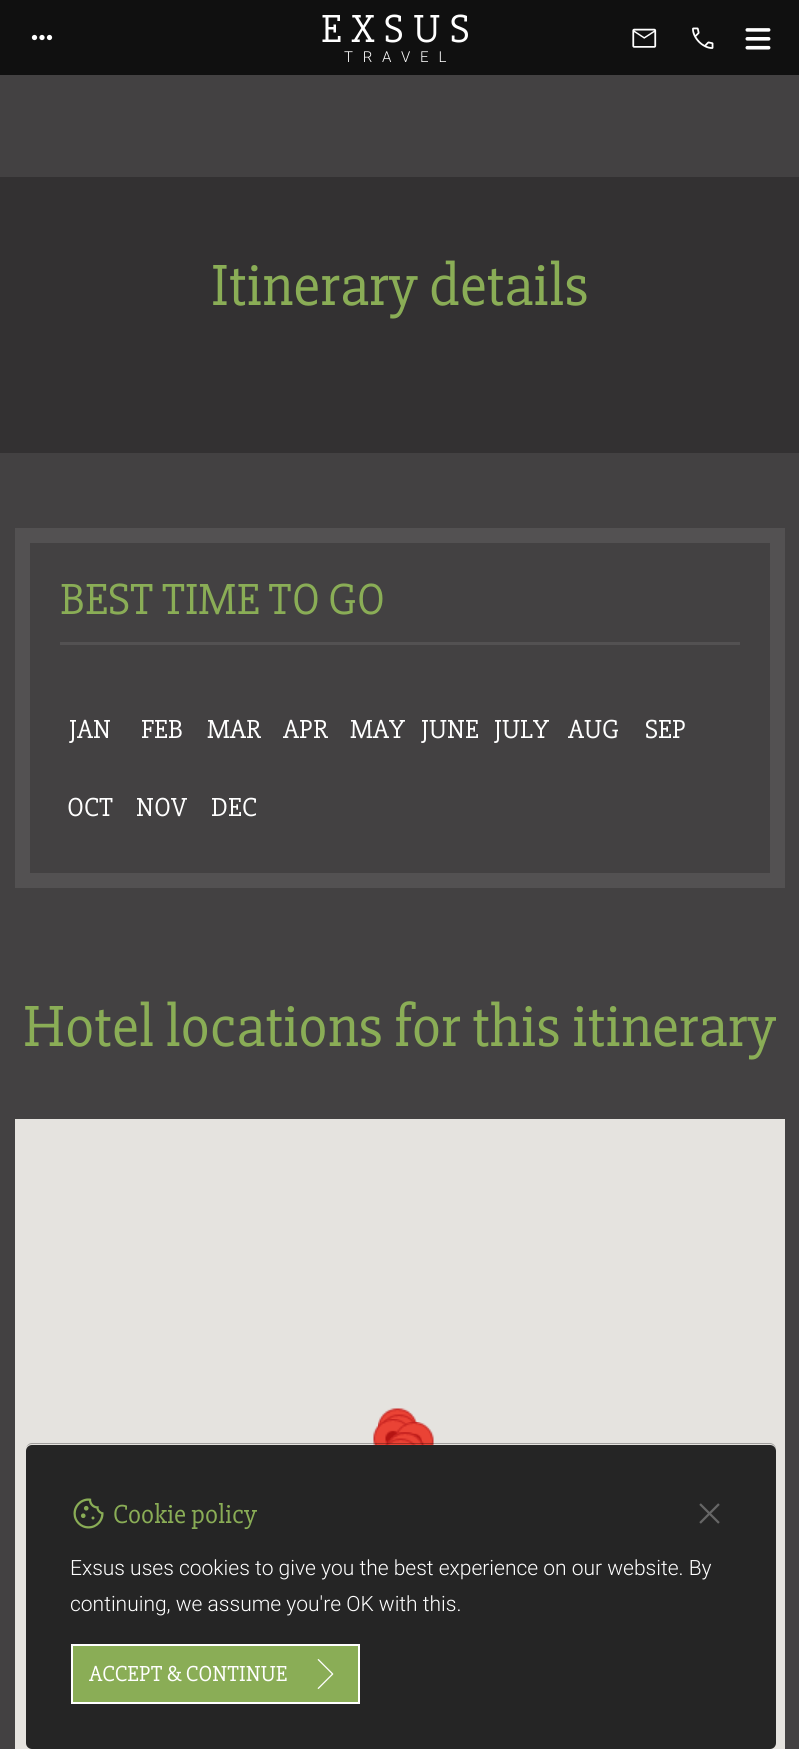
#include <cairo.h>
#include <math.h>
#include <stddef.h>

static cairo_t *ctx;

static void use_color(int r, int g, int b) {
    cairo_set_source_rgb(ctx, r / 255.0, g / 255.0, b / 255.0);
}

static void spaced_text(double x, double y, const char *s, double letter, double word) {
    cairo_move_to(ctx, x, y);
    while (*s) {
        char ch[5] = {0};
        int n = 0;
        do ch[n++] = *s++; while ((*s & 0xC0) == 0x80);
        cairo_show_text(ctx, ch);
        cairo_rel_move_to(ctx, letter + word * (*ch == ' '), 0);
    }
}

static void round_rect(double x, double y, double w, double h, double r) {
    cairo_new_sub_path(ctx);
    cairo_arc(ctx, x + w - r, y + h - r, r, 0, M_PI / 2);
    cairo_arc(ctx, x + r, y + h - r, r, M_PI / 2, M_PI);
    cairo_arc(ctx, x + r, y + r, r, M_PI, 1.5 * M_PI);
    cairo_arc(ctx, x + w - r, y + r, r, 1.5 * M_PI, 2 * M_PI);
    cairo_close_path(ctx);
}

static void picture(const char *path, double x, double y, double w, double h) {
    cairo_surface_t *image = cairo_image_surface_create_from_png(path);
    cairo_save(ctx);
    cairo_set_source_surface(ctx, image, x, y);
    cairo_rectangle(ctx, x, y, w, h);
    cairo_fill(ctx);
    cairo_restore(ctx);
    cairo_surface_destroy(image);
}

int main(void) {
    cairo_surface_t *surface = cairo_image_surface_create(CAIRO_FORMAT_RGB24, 799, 1749);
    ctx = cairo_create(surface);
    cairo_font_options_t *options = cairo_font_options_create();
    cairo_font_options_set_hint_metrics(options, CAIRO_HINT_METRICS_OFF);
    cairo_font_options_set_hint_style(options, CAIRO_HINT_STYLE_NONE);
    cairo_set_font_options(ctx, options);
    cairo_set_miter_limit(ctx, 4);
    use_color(51, 49, 50);
    cairo_paint(ctx);
    use_color(16, 16, 16);
    cairo_rectangle(ctx, 0, 0, 799, 75);
    cairo_fill(ctx);
    picture("img1.png", 31, 34, 22, 7);
    cairo_select_font_face(ctx, "Slabo 27px", CAIRO_FONT_SLANT_NORMAL, CAIRO_FONT_WEIGHT_NORMAL);
    cairo_set_font_size(ctx, 40.5);
    use_color(255, 255, 255);
    spaced_text(321, 42, "EXSUS", 9.75, 0);
    cairo_select_font_face(ctx, "Roboto Light", CAIRO_FONT_SLANT_NORMAL, CAIRO_FONT_WEIGHT_NORMAL);
    cairo_set_font_size(ctx, 15);
    spaced_text(344, 62, "TRAVEL", 9.75, 0);
    picture("img2.png", 632, 28, 25, 20);
    picture("img3.png", 692, 27, 22, 22);
    picture("img4.png", 745, 28, 26, 22);
    use_color(67, 65, 66);
    cairo_rectangle(ctx, 0, 75, 799, 102);
    cairo_fill(ctx);
    cairo_select_font_face(ctx, "Slabo 27px", CAIRO_FONT_SLANT_NORMAL, CAIRO_FONT_WEIGHT_NORMAL);
    cairo_set_font_size(ctx, 60);
    use_color(138, 173, 86);
    cairo_move_to(ctx, 211, 305);
    cairo_show_text(ctx, "Itinerary details");
    use_color(67, 65, 66);
    cairo_rectangle(ctx, 0, 453, 799, 1296);
    cairo_fill(ctx);
    cairo_rectangle(ctx, 22.5, 535.5, 755, 345);
    use_color(83, 81, 82);
    cairo_set_line_width(ctx, 15);
    cairo_stroke(ctx);
    cairo_rectangle(ctx, 60, 642, 680, 3);
    cairo_fill(ctx);
    cairo_set_font_size(ctx, 45);
    use_color(138, 173, 86);
    cairo_move_to(ctx, 60, 614);
    cairo_show_text(ctx, "BEST TIME TO GO");
    cairo_set_font_size(ctx, 27);
    use_color(255, 255, 255);
    cairo_move_to(ctx, 69, 738);
    cairo_show_text(ctx, "JAN");
    cairo_move_to(ctx, 141, 738);
    cairo_show_text(ctx, "FEB");
    cairo_move_to(ctx, 207, 738);
    cairo_show_text(ctx, "MAR");
    cairo_move_to(ctx, 283, 738);
    cairo_show_text(ctx, "APR");
    cairo_move_to(ctx, 350, 738);
    cairo_show_text(ctx, "MAY");
    cairo_move_to(ctx, 421, 738);
    cairo_show_text(ctx, "JUNE");
    cairo_move_to(ctx, 494, 738);
    cairo_show_text(ctx, "JULY");
    cairo_move_to(ctx, 568, 738);
    cairo_show_text(ctx, "AUG");
    cairo_move_to(ctx, 645, 738);
    cairo_show_text(ctx, "SEP");
    cairo_move_to(ctx, 67, 816);
    cairo_show_text(ctx, "OCT");
    cairo_move_to(ctx, 136, 816);
    cairo_show_text(ctx, "NOV");
    cairo_move_to(ctx, 211, 816);
    cairo_show_text(ctx, "DEC");
    cairo_set_font_size(ctx, 60);
    use_color(138, 173, 86);
    cairo_move_to(ctx, 23, 1046);
    cairo_show_text(ctx, "Hotel locations for this itinerary");
    use_color(229, 227, 223);
    cairo_rectangle(ctx, 15, 1119, 770, 630);
    cairo_fill(ctx);
    picture("img5.png", 378, 1408, 39, 21);
    picture("img6.png", 379, 1414, 38, 13);
    picture("img7.png", 373, 1419, 35, 26);
    picture("img8.png", 394, 1422, 40, 23);
    picture("img9.png", 385, 1432, 40, 13);
    picture("img10.png", 385, 1432, 40, 13);
    picture("img11.png", 385, 1432, 40, 13);
    picture("img12.png", 385, 1438, 31, 7);
    cairo_set_source_rgba(ctx, 0, 0, 0, 0.3);
    cairo_new_path(ctx);
    cairo_move_to(ctx, 32, 1443);
    cairo_curve_to(ctx, 29, 1443, 27, 1445, 26, 1448);
    cairo_curve_to(ctx, 27, 1446, 29, 1444, 32, 1444);
    cairo_line_to(ctx, 770, 1444);
    cairo_curve_to(ctx, 773, 1444, 776, 1447, 776, 1450);
    cairo_line_to(ctx, 776, 1743);
    cairo_line_to(ctx, 775, 1745);
    cairo_line_to(ctx, 776, 1742);
    cairo_line_to(ctx, 776, 1449);
    cairo_curve_to(ctx, 776, 1446, 773, 1443, 770, 1443);
    cairo_close_path(ctx);
    cairo_fill(ctx);
    use_color(37, 37, 37);
    round_rect(26, 1445, 750, 304, 6);
    cairo_fill(ctx);
    picture("img13.png", 73, 1498, 31, 31);
    cairo_set_font_size(ctx, 27);
    use_color(138, 173, 86);
    cairo_move_to(ctx, 113, 1523);
    cairo_show_text(ctx, "Cookie policy");
    picture("img14.png", 699, 1503, 21, 21);
    cairo_select_font_face(ctx, "Roboto Light", CAIRO_FONT_SLANT_NORMAL, CAIRO_FONT_WEIGHT_NORMAL);
    cairo_set_font_size(ctx, 21);
    use_color(255, 255, 255);
    cairo_move_to(ctx, 70, 1575);
    cairo_show_text(ctx, "Exsus uses cookies to give you the best experience on our website. By");
    cairo_move_to(ctx, 70, 1611);
    cairo_show_text(ctx, "continuing, we assume you're OK with this.");
    use_color(138, 173, 86);
    cairo_rectangle(ctx, 72, 1645, 287, 58);
    cairo_fill_preserve(ctx);
    use_color(255, 255, 255);
    cairo_set_line_width(ctx, 2);
    cairo_stroke(ctx);
    cairo_select_font_face(ctx, "Slabo 27px", CAIRO_FONT_SLANT_NORMAL, CAIRO_FONT_WEIGHT_NORMAL);
    cairo_set_font_size(ctx, 22.5);
    cairo_move_to(ctx, 89, 1681);
    cairo_show_text(ctx, "ACCEPT & CONTINUE");
    picture("img15.png", 317, 1659, 17, 30);
    cairo_surface_write_to_png(surface, "result.png");
    cairo_font_options_destroy(options);
    cairo_destroy(ctx);
    cairo_surface_destroy(surface);
    return 0;
}
